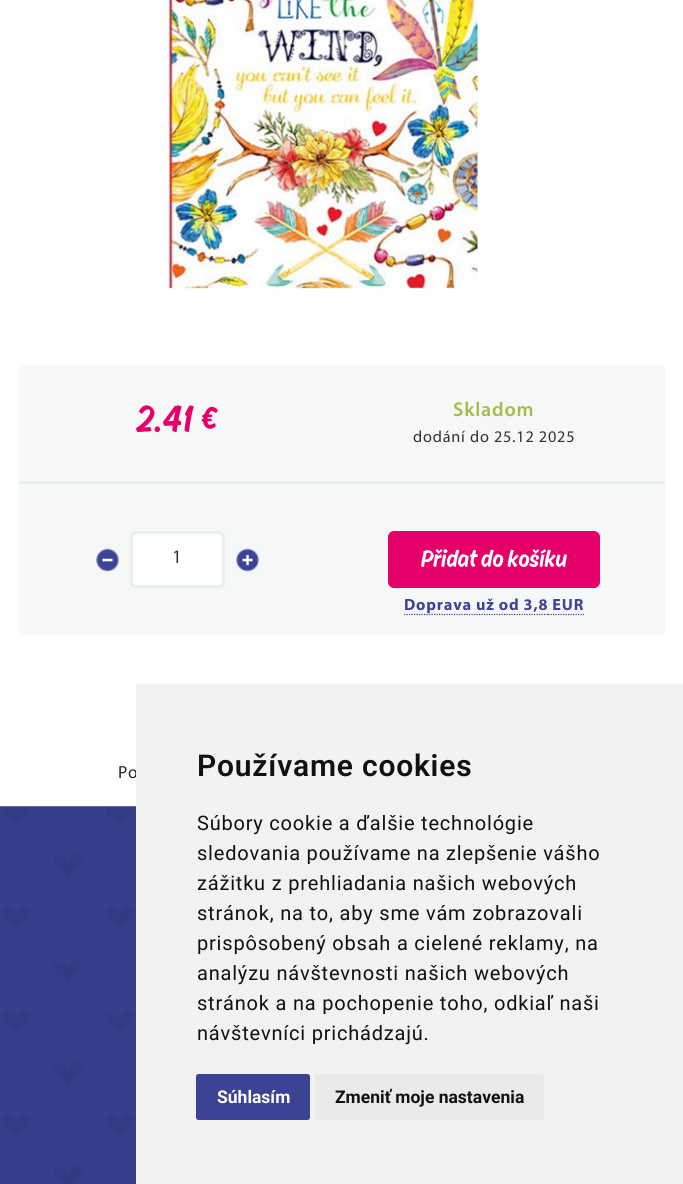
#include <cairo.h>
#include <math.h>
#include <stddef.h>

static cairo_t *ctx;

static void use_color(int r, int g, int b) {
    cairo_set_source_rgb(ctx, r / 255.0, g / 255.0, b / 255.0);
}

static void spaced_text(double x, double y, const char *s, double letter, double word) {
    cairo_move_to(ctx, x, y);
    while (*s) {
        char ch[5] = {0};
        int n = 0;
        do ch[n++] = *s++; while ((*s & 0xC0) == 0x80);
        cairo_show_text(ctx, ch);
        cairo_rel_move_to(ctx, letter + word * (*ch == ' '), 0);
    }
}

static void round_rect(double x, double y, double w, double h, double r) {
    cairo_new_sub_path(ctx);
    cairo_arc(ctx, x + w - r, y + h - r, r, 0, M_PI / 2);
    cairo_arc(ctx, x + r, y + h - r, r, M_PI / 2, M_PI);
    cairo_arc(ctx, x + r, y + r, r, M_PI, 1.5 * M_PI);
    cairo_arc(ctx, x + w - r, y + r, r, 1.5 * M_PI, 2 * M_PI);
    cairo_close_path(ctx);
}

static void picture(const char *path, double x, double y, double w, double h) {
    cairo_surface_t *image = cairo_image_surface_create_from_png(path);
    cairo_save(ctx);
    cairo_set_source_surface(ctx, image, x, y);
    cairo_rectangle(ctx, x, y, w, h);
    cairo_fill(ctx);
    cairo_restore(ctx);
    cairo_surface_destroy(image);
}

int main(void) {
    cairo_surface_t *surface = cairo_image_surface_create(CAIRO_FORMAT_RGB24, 683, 1184);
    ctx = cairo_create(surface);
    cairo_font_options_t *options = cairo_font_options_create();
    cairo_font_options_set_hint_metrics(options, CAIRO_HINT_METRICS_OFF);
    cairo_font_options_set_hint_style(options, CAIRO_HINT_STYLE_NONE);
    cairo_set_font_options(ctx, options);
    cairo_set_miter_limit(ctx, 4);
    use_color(255, 255, 255);
    cairo_paint(ctx);
    picture("img1.png", 168, 0, 310, 289);
    use_color(246, 247, 247);
    cairo_new_path(ctx);
    cairo_move_to(ctx, 24, 365);
    cairo_line_to(ctx, 660, 365);
    cairo_curve_to(ctx, 663, 365, 665, 367, 665, 370);
    cairo_line_to(ctx, 665, 484);
    cairo_line_to(ctx, 19, 484);
    cairo_line_to(ctx, 19, 370);
    cairo_curve_to(ctx, 19, 367, 21, 365, 24, 365);
    cairo_close_path(ctx);
    cairo_fill(ctx);
    use_color(234, 238, 240);
    cairo_rectangle(ctx, 19, 481, 646, 3);
    cairo_fill(ctx);
    cairo_select_font_face(ctx, "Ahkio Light", CAIRO_FONT_SLANT_NORMAL, CAIRO_FONT_WEIGHT_NORMAL);
    cairo_set_font_size(ctx, 40);
    use_color(229, 0, 105);
    spaced_text(136, 432, "2.41 €", 0.8, 0);
    cairo_select_font_face(ctx, "Myriad SemiBold", CAIRO_FONT_SLANT_NORMAL, CAIRO_FONT_WEIGHT_NORMAL);
    cairo_set_font_size(ctx, 20);
    use_color(164, 189, 73);
    spaced_text(453, 416, "Skladom", 0.8, 0);
    cairo_select_font_face(ctx, "Myriad", CAIRO_FONT_SLANT_NORMAL, CAIRO_FONT_WEIGHT_NORMAL);
    cairo_set_font_size(ctx, 16.25);
    use_color(51, 51, 51);
    spaced_text(413, 442, "dodání do 25.12 2025", 0.8, 0);
    use_color(246, 247, 247);
    cairo_rectangle(ctx, 19, 484, 646, 151);
    cairo_fill(ctx);
    picture("img2.png", 96, 548, 23, 24);
    use_color(255, 255, 255);
    round_rect(131.5, 532.5, 92, 54, 4.5);
    cairo_fill_preserve(ctx);
    use_color(234, 238, 240);
    cairo_set_line_width(ctx, 3);
    cairo_stroke(ctx);
    cairo_set_font_size(ctx, 19);
    use_color(51, 51, 51);
    cairo_move_to(ctx, 172, 563);
    cairo_show_text(ctx, "1");
    picture("img3.png", 236, 548, 23, 24);
    use_color(229, 0, 105);
    round_rect(388, 531, 212, 57, 6);
    cairo_fill(ctx);
    cairo_select_font_face(ctx, "Ahkio Light", CAIRO_FONT_SLANT_NORMAL, CAIRO_FONT_WEIGHT_NORMAL);
    cairo_set_font_size(ctx, 25);
    use_color(255, 255, 255);
    cairo_move_to(ctx, 421, 567);
    cairo_show_text(ctx, "Přidat do košíku");
    cairo_new_path(ctx);
    cairo_move_to(ctx, 404, 614.5);
    cairo_line_to(ctx, 548, 614.5);
    use_color(59, 68, 150);
    cairo_set_line_width(ctx, 1.2);
    cairo_set_dash(ctx, (double[]){1.25, 1.25}, 2, 0);
    cairo_stroke(ctx);
    cairo_select_font_face(ctx, "Myriad", CAIRO_FONT_SLANT_NORMAL, CAIRO_FONT_WEIGHT_BOLD);
    cairo_set_font_size(ctx, 16.25);
    spaced_text(404, 610, "Doprava už od 3,8 EUR", 0.8, 0);
    cairo_new_path(ctx);
    cairo_move_to(ctx, 548, 614.5);
    cairo_line_to(ctx, 584, 614.5);
    cairo_stroke(ctx);
    cairo_select_font_face(ctx, "Myriad", CAIRO_FONT_SLANT_NORMAL, CAIRO_FONT_WEIGHT_NORMAL);
    cairo_set_font_size(ctx, 17.5);
    use_color(33, 37, 41);
    spaced_text(118, 778, "Po", 0.8, 0);
    picture("img4.png", 0, 806, 136, 378);
    use_color(242, 242, 242);
    cairo_rectangle(ctx, 136, 684, 547, 500);
    cairo_fill(ctx);
    cairo_select_font_face(ctx, "Roboto SemiBold", CAIRO_FONT_SLANT_NORMAL, CAIRO_FONT_WEIGHT_NORMAL);
    cairo_set_font_size(ctx, 30);
    use_color(17, 17, 17);
    spaced_text(197, 776, "Používame cookies", 0.8, 0);
    cairo_select_font_face(ctx, "Roboto", CAIRO_FONT_SLANT_NORMAL, CAIRO_FONT_WEIGHT_NORMAL);
    cairo_set_font_size(ctx, 20);
    spaced_text(197, 830, "Súbory cookie a ďalšie technológie", 0.8, 0);
    spaced_text(197, 860, "sledovania používame na zlepšenie vášho", 0.8, 0);
    spaced_text(197, 890, "zážitku z prehliadania našich webových", 0.8, 0);
    spaced_text(197, 920, "stránok, na to, aby sme vám zobrazovali", 0.8, 0);
    spaced_text(197, 950, "prispôsobený obsah a cielené reklamy, na", 0.8, 0);
    spaced_text(197, 980, "analýzu návštevnosti našich webových", 0.8, 0);
    spaced_text(197, 1010, "stránok a na pochopenie toho, odkiaľ naši", 0.8, 0);
    spaced_text(197, 1040, "návštevníci prichádzajú.", 0.8, 0);
    use_color(60, 67, 149);
    round_rect(196, 1074, 114, 46, 2.5);
    cairo_fill(ctx);
    cairo_select_font_face(ctx, "Roboto", CAIRO_FONT_SLANT_NORMAL, CAIRO_FONT_WEIGHT_BOLD);
    cairo_set_font_size(ctx, 17.5);
    use_color(255, 255, 255);
    cairo_move_to(ctx, 217, 1103);
    cairo_show_text(ctx, "Súhlasím");
    use_color(234, 234, 234);
    round_rect(315, 1074, 229, 46, 2.5);
    cairo_fill(ctx);
    use_color(17, 17, 17);
    cairo_move_to(ctx, 335, 1103);
    cairo_show_text(ctx, "Zmeniť moje nastavenia");
    cairo_surface_write_to_png(surface, "result.png");
    cairo_font_options_destroy(options);
    cairo_destroy(ctx);
    cairo_surface_destroy(surface);
    return 0;
}
